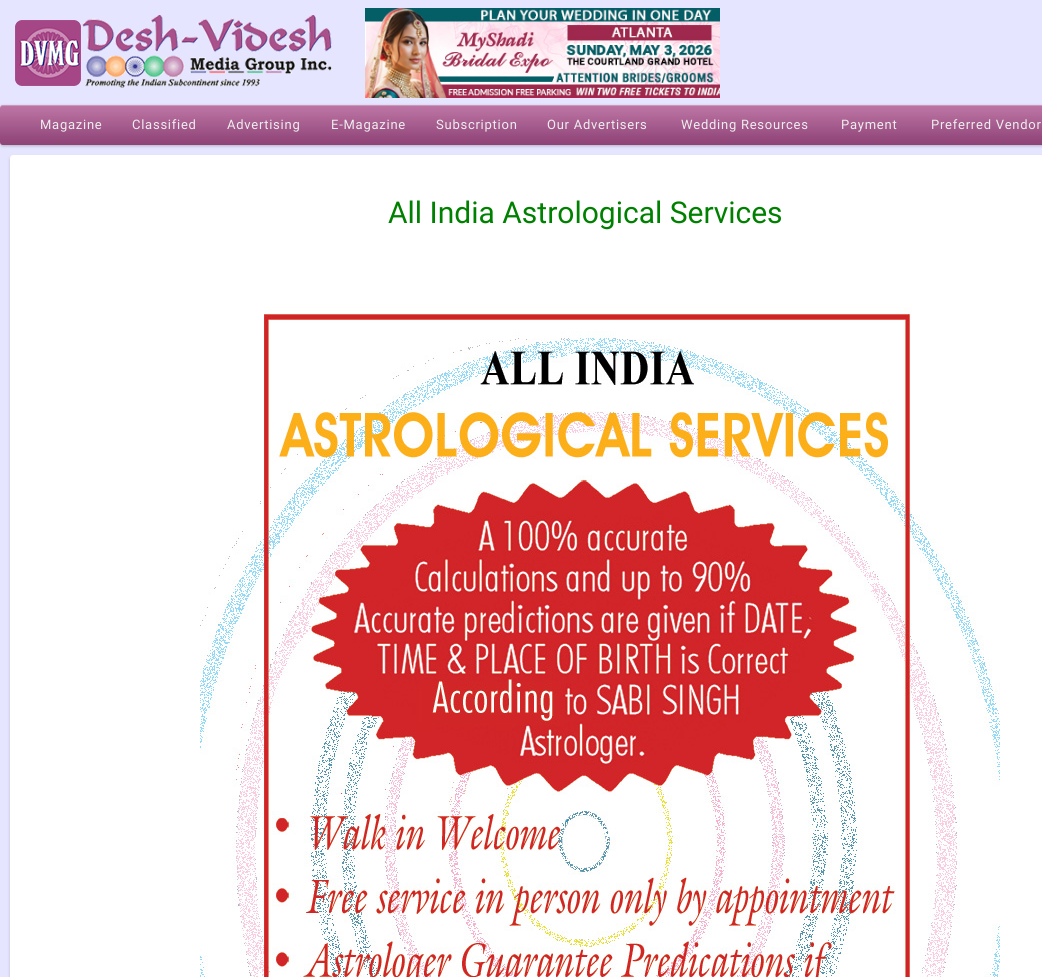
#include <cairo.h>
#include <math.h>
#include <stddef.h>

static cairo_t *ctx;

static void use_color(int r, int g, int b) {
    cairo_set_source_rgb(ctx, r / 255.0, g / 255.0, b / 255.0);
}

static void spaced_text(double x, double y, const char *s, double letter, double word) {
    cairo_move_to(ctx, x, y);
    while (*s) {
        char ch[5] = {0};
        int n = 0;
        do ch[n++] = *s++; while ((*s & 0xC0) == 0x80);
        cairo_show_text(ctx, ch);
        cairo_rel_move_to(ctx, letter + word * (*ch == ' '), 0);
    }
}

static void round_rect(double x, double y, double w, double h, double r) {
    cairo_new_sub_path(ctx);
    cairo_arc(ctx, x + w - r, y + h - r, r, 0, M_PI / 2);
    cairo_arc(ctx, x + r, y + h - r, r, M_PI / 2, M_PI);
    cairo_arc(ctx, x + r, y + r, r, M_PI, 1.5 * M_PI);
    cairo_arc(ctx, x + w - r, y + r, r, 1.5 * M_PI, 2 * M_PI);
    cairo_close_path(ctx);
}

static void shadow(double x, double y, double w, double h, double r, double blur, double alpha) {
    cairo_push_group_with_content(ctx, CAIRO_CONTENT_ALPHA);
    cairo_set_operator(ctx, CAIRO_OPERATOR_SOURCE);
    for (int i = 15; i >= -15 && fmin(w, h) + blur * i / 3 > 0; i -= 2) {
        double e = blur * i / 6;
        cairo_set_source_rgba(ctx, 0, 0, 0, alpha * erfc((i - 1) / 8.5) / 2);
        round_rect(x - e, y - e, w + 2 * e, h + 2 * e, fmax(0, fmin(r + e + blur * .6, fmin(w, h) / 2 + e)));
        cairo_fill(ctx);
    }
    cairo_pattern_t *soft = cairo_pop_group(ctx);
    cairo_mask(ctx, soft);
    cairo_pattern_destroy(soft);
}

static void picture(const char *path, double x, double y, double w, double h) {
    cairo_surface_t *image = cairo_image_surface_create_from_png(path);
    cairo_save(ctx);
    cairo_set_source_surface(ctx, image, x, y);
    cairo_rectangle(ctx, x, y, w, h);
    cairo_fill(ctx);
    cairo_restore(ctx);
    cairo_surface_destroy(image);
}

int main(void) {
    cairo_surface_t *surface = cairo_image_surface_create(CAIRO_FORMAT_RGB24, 1042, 977);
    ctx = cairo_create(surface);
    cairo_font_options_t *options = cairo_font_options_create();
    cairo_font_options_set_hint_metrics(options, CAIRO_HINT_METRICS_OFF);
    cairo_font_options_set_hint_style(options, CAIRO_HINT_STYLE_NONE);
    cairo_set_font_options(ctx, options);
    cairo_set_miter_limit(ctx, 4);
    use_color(229, 229, 255);
    cairo_paint(ctx);
    picture("img1.png", 15, 15, 317, 73);
    picture("img2.png", 365, 8, 355, 90);
    use_color(0, 0, 0);
    shadow(0, 106, 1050, 40, 3, 1.5, 0.23);
    use_color(165, 70, 134);
    round_rect(0, 105, 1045, 40, 3);
    cairo_fill(ctx);
    picture("img3.png", 0, 105, 1042, 40);
    cairo_set_source_rgba(ctx, 1, 1, 1, 0.23);
    cairo_new_path(ctx);
    cairo_move_to(ctx, 3, 106);
    cairo_line_to(ctx, 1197, 106);
    cairo_curve_to(ctx, 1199, 106, 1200, 107, 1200, 109);
    cairo_line_to(ctx, 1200, 108);
    cairo_curve_to(ctx, 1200, 106, 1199, 105, 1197, 105);
    cairo_line_to(ctx, 3, 105);
    cairo_curve_to(ctx, 1, 105, 0, 106, 0, 108);
    cairo_line_to(ctx, 0, 109);
    cairo_curve_to(ctx, 0, 107, 1, 106, 3, 106);
    cairo_close_path(ctx);
    cairo_fill(ctx);
    cairo_select_font_face(ctx, "Roboto", CAIRO_FONT_SLANT_NORMAL, CAIRO_FONT_WEIGHT_NORMAL);
    cairo_set_font_size(ctx, 13);
    use_color(238, 238, 238);
    spaced_text(40, 129, "Magazine", 0.75, 0);
    spaced_text(132, 129, "Classified", 0.75, 0);
    spaced_text(227, 129, "Advertising", 0.75, 0);
    spaced_text(331, 129, "E-Magazine", 0.75, 0);
    spaced_text(436, 129, "Subscription", 0.75, 0);
    spaced_text(547, 129, "Our Advertisers", 0.75, 0);
    spaced_text(681, 129, "Wedding Resources", 0.75, 0);
    spaced_text(841, 129, "Payment", 0.75, 0);
    spaced_text(931, 129, "Preferred Vendor", 0.75, 0);
    use_color(0, 0, 0);
    shadow(10, 157, 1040, 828, 3, 1.5, 0.2);
    use_color(255, 255, 255);
    round_rect(10, 155, 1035, 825, 3);
    cairo_fill(ctx);
    cairo_set_font_size(ctx, 30);
    use_color(0, 128, 0);
    cairo_move_to(ctx, 388, 223);
    cairo_show_text(ctx, "All India Astrological Services");
    picture("img4.png", 200, 307, 800, 670);
    cairo_surface_write_to_png(surface, "result.png");
    cairo_font_options_destroy(options);
    cairo_destroy(ctx);
    cairo_surface_destroy(surface);
    return 0;
}
